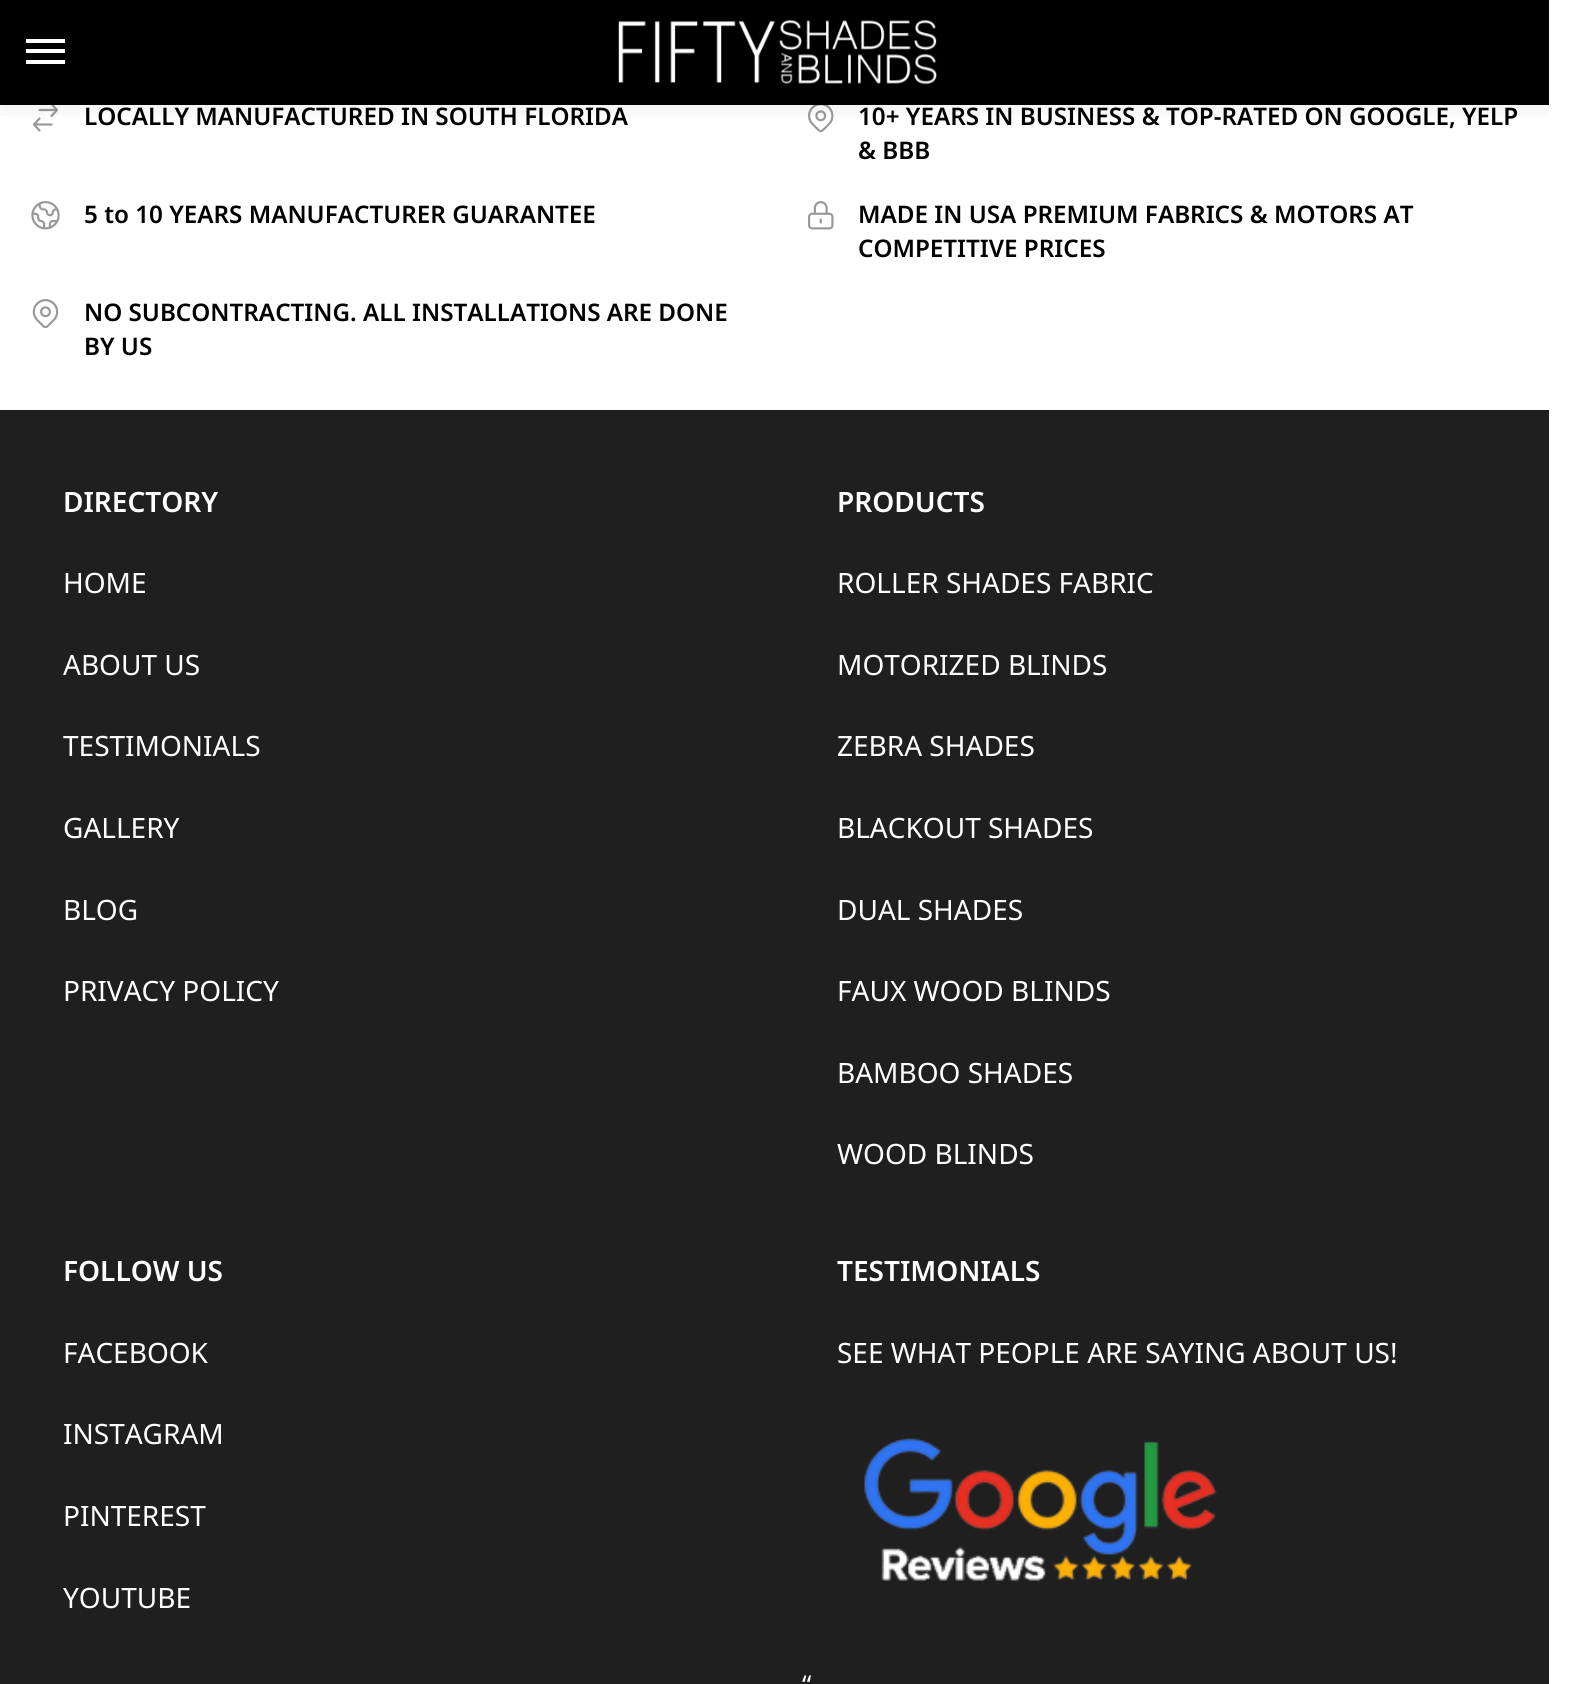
#include <cairo.h>
#include <math.h>
#include <stddef.h>

static cairo_t *ctx;

static void use_color(int r, int g, int b) {
    cairo_set_source_rgb(ctx, r / 255.0, g / 255.0, b / 255.0);
}

static void round_rect(double x, double y, double w, double h, double r) {
    cairo_new_sub_path(ctx);
    cairo_arc(ctx, x + w - r, y + h - r, r, 0, M_PI / 2);
    cairo_arc(ctx, x + r, y + h - r, r, M_PI / 2, M_PI);
    cairo_arc(ctx, x + r, y + r, r, M_PI, 1.5 * M_PI);
    cairo_arc(ctx, x + w - r, y + r, r, 1.5 * M_PI, 2 * M_PI);
    cairo_close_path(ctx);
}

static void shadow(double x, double y, double w, double h, double r, double blur, double alpha) {
    cairo_push_group_with_content(ctx, CAIRO_CONTENT_ALPHA);
    cairo_set_operator(ctx, CAIRO_OPERATOR_SOURCE);
    for (int i = 15; i >= -15 && fmin(w, h) + blur * i / 3 > 0; i -= 2) {
        double e = blur * i / 6;
        cairo_set_source_rgba(ctx, 0, 0, 0, alpha * erfc((i - 1) / 8.5) / 2);
        round_rect(x - e, y - e, w + 2 * e, h + 2 * e, fmax(0, fmin(r + e + blur * .6, fmin(w, h) / 2 + e)));
        cairo_fill(ctx);
    }
    cairo_pattern_t *soft = cairo_pop_group(ctx);
    cairo_mask(ctx, soft);
    cairo_pattern_destroy(soft);
}

static void picture(const char *path, double x, double y, double w, double h) {
    cairo_surface_t *image = cairo_image_surface_create_from_png(path);
    cairo_save(ctx);
    cairo_set_source_surface(ctx, image, x, y);
    cairo_rectangle(ctx, x, y, w, h);
    cairo_fill(ctx);
    cairo_restore(ctx);
    cairo_surface_destroy(image);
}

int main(void) {
    cairo_surface_t *surface = cairo_image_surface_create(CAIRO_FORMAT_RGB24, 1574, 1684);
    ctx = cairo_create(surface);
    cairo_font_options_t *options = cairo_font_options_create();
    cairo_font_options_set_hint_metrics(options, CAIRO_HINT_METRICS_OFF);
    cairo_font_options_set_hint_style(options, CAIRO_HINT_STYLE_NONE);
    cairo_set_font_options(ctx, options);
    cairo_set_miter_limit(ctx, 4);
    use_color(255, 255, 255);
    cairo_paint(ctx);
    cairo_new_path(ctx);
    cairo_move_to(ctx, 39.5, 110);
    cairo_line_to(ctx, 57, 110);
    cairo_move_to(ctx, 57, 110);
    cairo_line_to(ctx, 51.5, 104);
    cairo_move_to(ctx, 57, 110);
    cairo_line_to(ctx, 51.5, 116);
    cairo_move_to(ctx, 51.5, 124.5);
    cairo_line_to(ctx, 34, 124.5);
    cairo_move_to(ctx, 34, 124.5);
    cairo_line_to(ctx, 39.5, 130.5);
    cairo_move_to(ctx, 34, 124.5);
    cairo_line_to(ctx, 39.5, 118.5);
    use_color(153, 153, 153);
    cairo_set_line_width(ctx, 2.2);
    cairo_set_line_cap(ctx, CAIRO_LINE_CAP_ROUND);
    cairo_set_line_join(ctx, CAIRO_LINE_JOIN_ROUND);
    cairo_stroke(ctx);
    use_color(0, 0, 0);
    cairo_rectangle(ctx, 0, 0, 1549, 105);
    cairo_fill(ctx);
    picture("img2.png", 808, 105, 26, 28);
    cairo_save(ctx);
    cairo_rectangle(ctx, 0, 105, 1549, 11);
    cairo_clip(ctx);
    use_color(0, 0, 0);
    shadow(0, 2, 1549, 105, 0, 13, 0.08);
    cairo_restore(ctx);
    use_color(255, 255, 255);
    cairo_rectangle(ctx, 26, 39, 39, 4);
    cairo_fill(ctx);
    cairo_rectangle(ctx, 26, 49, 39, 4);
    cairo_fill(ctx);
    cairo_rectangle(ctx, 26, 60, 39, 4);
    cairo_fill(ctx);
    picture("img1.png", 618, 19, 319, 66);
    cairo_rectangle(ctx, 1549, 0, 15, 115);
    cairo_fill(ctx);
    cairo_select_font_face(ctx, "Noto Sans SemiBold", CAIRO_FONT_SLANT_NORMAL, CAIRO_FONT_WEIGHT_NORMAL);
    cairo_set_font_size(ctx, 24.2);
    use_color(0, 0, 0);
    cairo_move_to(ctx, 84, 125);
    cairo_show_text(ctx, "LOCALLY MANUFACTURED IN SOUTH FLORIDA");
    cairo_move_to(ctx, 858, 125);
    cairo_show_text(ctx, "10+ YEARS IN BUSINESS & TOP-RATED ON GOOGLE, YELP");
    cairo_move_to(ctx, 858, 159);
    cairo_show_text(ctx, "& BBB");
    picture("img3.png", 31, 201, 29, 29);
    cairo_move_to(ctx, 84, 223);
    cairo_show_text(ctx, "5 to 10 YEARS MANUFACTURER GUARANTEE");
    picture("img4.png", 808, 201, 26, 29);
    cairo_move_to(ctx, 858, 223);
    cairo_show_text(ctx, "MADE IN USA PREMIUM FABRICS & MOTORS AT");
    cairo_move_to(ctx, 858, 257);
    cairo_show_text(ctx, "COMPETITIVE PRICES");
    picture("img5.png", 32, 299, 27, 30);
    cairo_move_to(ctx, 84, 321);
    cairo_show_text(ctx, "NO SUBCONTRACTING. ALL INSTALLATIONS ARE DONE");
    cairo_move_to(ctx, 84, 355);
    cairo_show_text(ctx, "BY US");
    use_color(31, 31, 31);
    cairo_rectangle(ctx, 0, 410, 1549, 1274);
    cairo_fill(ctx);
    cairo_set_font_size(ctx, 28);
    use_color(255, 255, 255);
    cairo_move_to(ctx, 63, 512);
    cairo_show_text(ctx, "DIRECTORY");
    cairo_select_font_face(ctx, "Noto Sans", CAIRO_FONT_SLANT_NORMAL, CAIRO_FONT_WEIGHT_NORMAL);
    cairo_move_to(ctx, 63, 593);
    cairo_show_text(ctx, "HOME");
    cairo_move_to(ctx, 63, 675);
    cairo_show_text(ctx, "ABOUT US");
    cairo_move_to(ctx, 63, 756);
    cairo_show_text(ctx, "TESTIMONIALS");
    cairo_move_to(ctx, 63, 838);
    cairo_show_text(ctx, "GALLERY");
    cairo_move_to(ctx, 63, 920);
    cairo_show_text(ctx, "BLOG");
    cairo_move_to(ctx, 63, 1001);
    cairo_show_text(ctx, "PRIVACY POLICY");
    cairo_select_font_face(ctx, "Noto Sans SemiBold", CAIRO_FONT_SLANT_NORMAL, CAIRO_FONT_WEIGHT_NORMAL);
    cairo_move_to(ctx, 837, 512);
    cairo_show_text(ctx, "PRODUCTS");
    cairo_select_font_face(ctx, "Noto Sans", CAIRO_FONT_SLANT_NORMAL, CAIRO_FONT_WEIGHT_NORMAL);
    cairo_move_to(ctx, 837, 593);
    cairo_show_text(ctx, "ROLLER SHADES FABRIC");
    cairo_move_to(ctx, 837, 675);
    cairo_show_text(ctx, "MOTORIZED BLINDS");
    cairo_move_to(ctx, 837, 756);
    cairo_show_text(ctx, "ZEBRA SHADES");
    cairo_move_to(ctx, 837, 838);
    cairo_show_text(ctx, "BLACKOUT SHADES");
    cairo_move_to(ctx, 837, 920);
    cairo_show_text(ctx, "DUAL SHADES");
    cairo_move_to(ctx, 837, 1001);
    cairo_show_text(ctx, "FAUX WOOD BLINDS");
    cairo_move_to(ctx, 837, 1083);
    cairo_show_text(ctx, "BAMBOO SHADES");
    cairo_move_to(ctx, 837, 1164);
    cairo_show_text(ctx, "WOOD BLINDS");
    cairo_select_font_face(ctx, "Noto Sans SemiBold", CAIRO_FONT_SLANT_NORMAL, CAIRO_FONT_WEIGHT_NORMAL);
    cairo_move_to(ctx, 63, 1281);
    cairo_show_text(ctx, "FOLLOW US");
    cairo_select_font_face(ctx, "Noto Sans", CAIRO_FONT_SLANT_NORMAL, CAIRO_FONT_WEIGHT_NORMAL);
    cairo_move_to(ctx, 63, 1363);
    cairo_show_text(ctx, "FACEBOOK");
    cairo_move_to(ctx, 63, 1444);
    cairo_show_text(ctx, "INSTAGRAM");
    cairo_move_to(ctx, 63, 1526);
    cairo_show_text(ctx, "PINTEREST");
    cairo_move_to(ctx, 63, 1608);
    cairo_show_text(ctx, "YOUTUBE");
    cairo_select_font_face(ctx, "Noto Sans SemiBold", CAIRO_FONT_SLANT_NORMAL, CAIRO_FONT_WEIGHT_NORMAL);
    cairo_move_to(ctx, 837, 1281);
    cairo_show_text(ctx, "TESTIMONIALS");
    cairo_select_font_face(ctx, "Noto Sans", CAIRO_FONT_SLANT_NORMAL, CAIRO_FONT_WEIGHT_NORMAL);
    cairo_move_to(ctx, 837, 1363);
    cairo_show_text(ctx, "SEE WHAT PEOPLE ARE SAYING ABOUT US!");
    picture("img6.png", 864, 1438, 353, 143);
    cairo_set_font_size(ctx, 26);
    cairo_move_to(ctx, 802, 1694);
    cairo_show_text(ctx, "“");
    cairo_surface_write_to_png(surface, "result.png");
    cairo_font_options_destroy(options);
    cairo_destroy(ctx);
    cairo_surface_destroy(surface);
    return 0;
}
